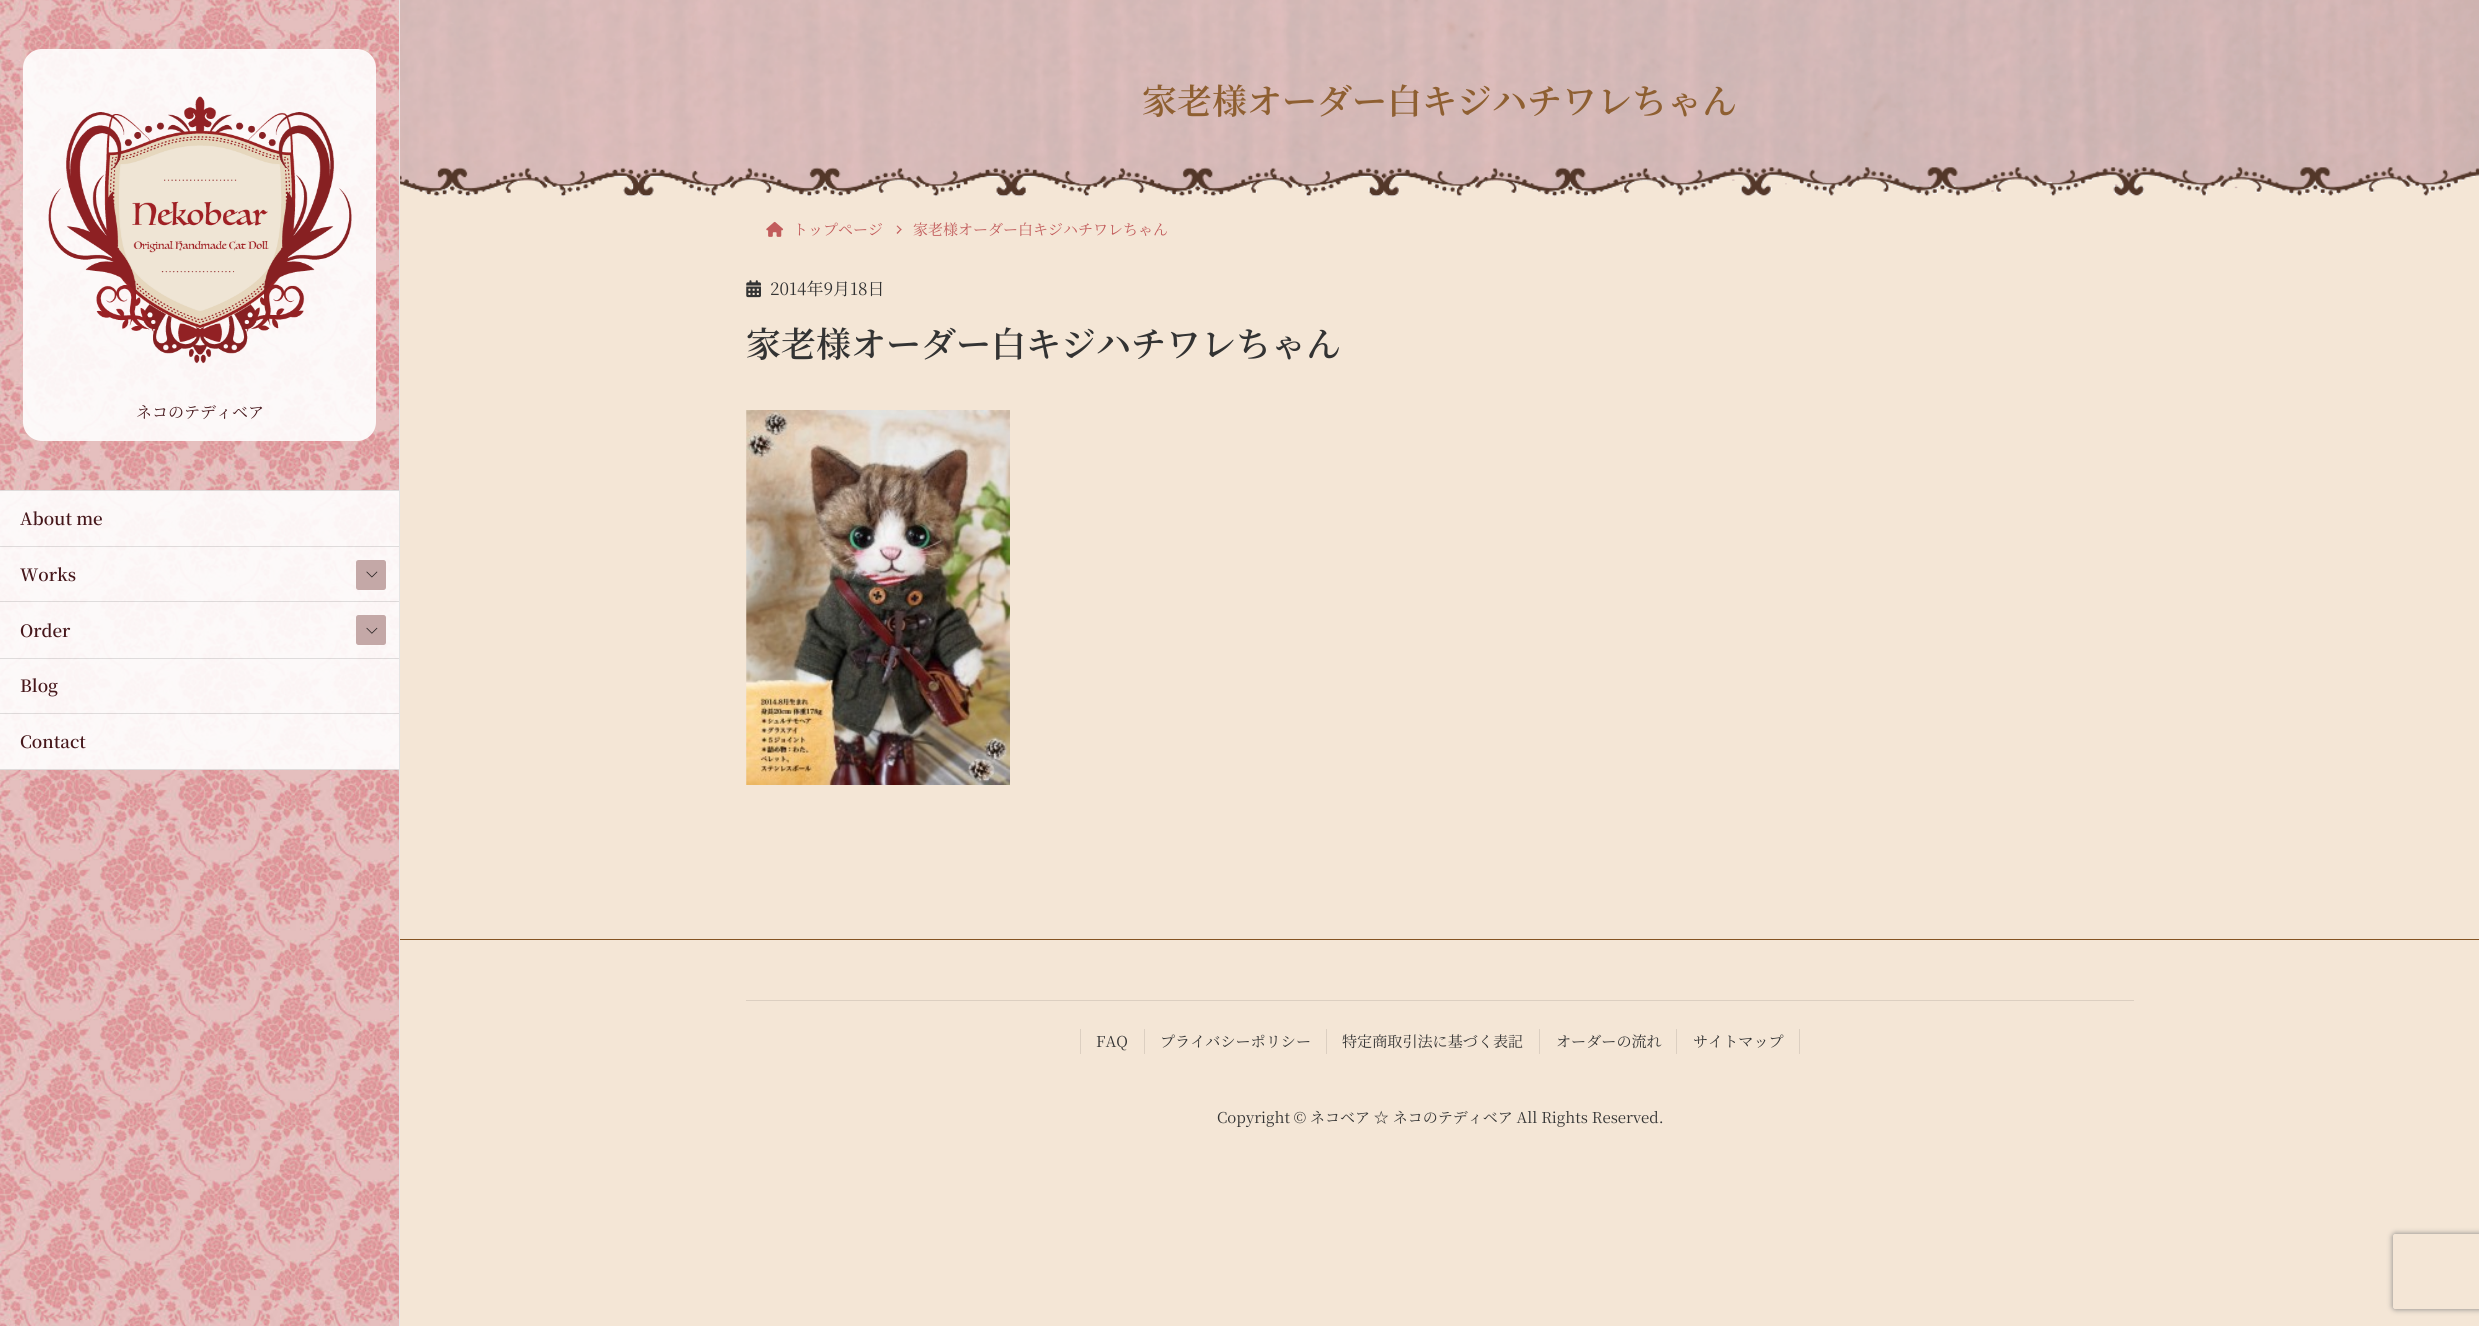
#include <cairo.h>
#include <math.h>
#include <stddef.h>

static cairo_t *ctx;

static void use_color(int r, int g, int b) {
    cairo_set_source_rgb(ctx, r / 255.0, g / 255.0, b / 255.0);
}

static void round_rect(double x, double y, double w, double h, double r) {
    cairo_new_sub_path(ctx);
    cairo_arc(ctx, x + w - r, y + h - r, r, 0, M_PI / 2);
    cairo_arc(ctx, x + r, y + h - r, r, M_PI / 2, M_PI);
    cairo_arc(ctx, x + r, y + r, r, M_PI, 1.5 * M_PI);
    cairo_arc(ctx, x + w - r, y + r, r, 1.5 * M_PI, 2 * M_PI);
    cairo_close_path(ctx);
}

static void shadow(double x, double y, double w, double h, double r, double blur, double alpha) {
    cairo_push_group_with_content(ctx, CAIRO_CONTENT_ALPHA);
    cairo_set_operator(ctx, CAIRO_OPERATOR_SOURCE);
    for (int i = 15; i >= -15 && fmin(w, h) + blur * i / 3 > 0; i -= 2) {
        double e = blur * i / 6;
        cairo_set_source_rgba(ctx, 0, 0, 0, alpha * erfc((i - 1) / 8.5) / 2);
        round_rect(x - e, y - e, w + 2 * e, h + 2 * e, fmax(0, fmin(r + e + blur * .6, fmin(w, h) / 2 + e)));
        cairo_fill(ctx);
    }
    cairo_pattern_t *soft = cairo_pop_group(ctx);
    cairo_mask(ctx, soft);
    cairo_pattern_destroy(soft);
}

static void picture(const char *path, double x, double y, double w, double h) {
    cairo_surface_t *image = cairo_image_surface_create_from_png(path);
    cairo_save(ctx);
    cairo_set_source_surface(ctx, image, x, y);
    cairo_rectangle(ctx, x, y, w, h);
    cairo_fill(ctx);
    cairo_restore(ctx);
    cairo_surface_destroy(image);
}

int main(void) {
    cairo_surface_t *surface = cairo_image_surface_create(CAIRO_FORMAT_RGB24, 2479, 1326);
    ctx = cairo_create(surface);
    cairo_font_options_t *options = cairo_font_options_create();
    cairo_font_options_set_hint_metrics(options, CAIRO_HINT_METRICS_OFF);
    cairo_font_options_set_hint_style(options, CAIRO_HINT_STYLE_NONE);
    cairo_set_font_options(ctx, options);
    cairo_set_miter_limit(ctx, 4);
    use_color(244, 230, 214);
    cairo_paint(ctx);
    picture("img1.png", 0, 0, 399, 1326);
    use_color(229, 229, 229);
    cairo_rectangle(ctx, 399, 0, 1, 1326);
    cairo_fill(ctx);
    cairo_set_source_rgba(ctx, 1, 1, 1, 0.9);
    round_rect(23, 49, 353, 392, 19);
    cairo_fill(ctx);
    picture("img2.png", 48, 96, 304, 268);
    cairo_select_font_face(ctx, "Noto Serif JP", CAIRO_FONT_SLANT_NORMAL, CAIRO_FONT_WEIGHT_NORMAL);
    cairo_set_font_size(ctx, 16);
    use_color(70, 23, 27);
    cairo_move_to(ctx, 136, 418);
    cairo_show_text(ctx, "ネコのテディベア");
    cairo_set_source_rgba(ctx, 1, 1, 1, 0.9);
    cairo_rectangle(ctx, 0, 490, 399, 280);
    cairo_fill(ctx);
    cairo_set_source_rgba(ctx, 0, 0, 0, 0.12);
    cairo_rectangle(ctx, 0, 490, 399, 1);
    cairo_fill(ctx);
    cairo_select_font_face(ctx, "Noto Serif JP SemiBold", CAIRO_FONT_SLANT_NORMAL, CAIRO_FONT_WEIGHT_NORMAL);
    cairo_set_font_size(ctx, 17);
    use_color(70, 23, 27);
    cairo_move_to(ctx, 20, 525);
    cairo_show_text(ctx, "About me");
    cairo_set_source_rgba(ctx, 0, 0, 0, 0.12);
    cairo_rectangle(ctx, 0, 546, 399, 1);
    cairo_fill(ctx);
    use_color(70, 23, 27);
    cairo_move_to(ctx, 20, 581);
    cairo_show_text(ctx, "Works");
    use_color(196, 168, 167);
    round_rect(356, 560, 30, 30, 2.5);
    cairo_fill(ctx);
    picture("img3.png", 366, 571, 12, 7);
    cairo_set_source_rgba(ctx, 0, 0, 0, 0.12);
    cairo_rectangle(ctx, 0, 601, 399, 1);
    cairo_fill(ctx);
    use_color(70, 23, 27);
    cairo_move_to(ctx, 20, 637);
    cairo_show_text(ctx, "Order");
    use_color(196, 168, 167);
    round_rect(356, 615, 30, 30, 2.5);
    cairo_fill(ctx);
    picture("img4.png", 366, 627, 12, 7);
    cairo_set_source_rgba(ctx, 0, 0, 0, 0.12);
    cairo_rectangle(ctx, 0, 658, 399, 1);
    cairo_fill(ctx);
    use_color(70, 23, 27);
    cairo_move_to(ctx, 20, 692);
    cairo_show_text(ctx, "Blog");
    cairo_set_source_rgba(ctx, 0, 0, 0, 0.12);
    cairo_rectangle(ctx, 0, 713, 399, 1);
    cairo_fill(ctx);
    cairo_rectangle(ctx, 0, 769, 399, 1);
    cairo_fill(ctx);
    use_color(70, 23, 27);
    cairo_move_to(ctx, 20, 748);
    cairo_show_text(ctx, "Contact");
    picture("img5.png", 400, 0, 2079, 197);
    cairo_set_font_size(ctx, 35);
    use_color(142, 95, 49);
    cairo_move_to(ctx, 1142, 114);
    cairo_show_text(ctx, "家老様オーダー白キジハチワレちゃん");
    picture("img6.png", 766, 221, 18, 16);
    cairo_select_font_face(ctx, "Noto Serif JP", CAIRO_FONT_SLANT_NORMAL, CAIRO_FONT_WEIGHT_NORMAL);
    cairo_set_font_size(ctx, 15);
    use_color(194, 92, 92);
    cairo_move_to(ctx, 793, 235);
    cairo_show_text(ctx, "トップページ");
    cairo_new_path(ctx);
    cairo_move_to(ctx, 897.5, 225.5);
    cairo_line_to(ctx, 901.5, 229.5);
    cairo_line_to(ctx, 901, 230.5);
    cairo_line_to(ctx, 896.5, 226);
    cairo_close_path(ctx);
    cairo_fill(ctx);
    cairo_new_path(ctx);
    cairo_move_to(ctx, 901, 228.5);
    cairo_line_to(ctx, 901.5, 229.5);
    cairo_line_to(ctx, 897.5, 234);
    cairo_line_to(ctx, 896.5, 233);
    cairo_close_path(ctx);
    cairo_fill(ctx);
    cairo_move_to(ctx, 913, 235);
    cairo_show_text(ctx, "家老様オーダー白キジハチワレちゃん");
    picture("img7.png", 746, 280, 15, 18);
    cairo_set_font_size(ctx, 17);
    use_color(51, 51, 51);
    cairo_move_to(ctx, 770, 295);
    cairo_show_text(ctx, "2014年9月18日");
    cairo_select_font_face(ctx, "Noto Serif JP SemiBold", CAIRO_FONT_SLANT_NORMAL, CAIRO_FONT_WEIGHT_NORMAL);
    cairo_set_font_size(ctx, 35);
    cairo_move_to(ctx, 746, 357);
    cairo_show_text(ctx, "家老様オーダー白キジハチワレちゃん");
    picture("img8.png", 746, 410, 264, 375);
    use_color(132, 83, 34);
    cairo_rectangle(ctx, 400, 939, 2079, 1);
    cairo_fill(ctx);
    use_color(220, 207, 193);
    cairo_rectangle(ctx, 746, 1000, 1388, 1);
    cairo_fill(ctx);
    cairo_rectangle(ctx, 1080, 1029, 1, 25);
    cairo_fill(ctx);
    cairo_select_font_face(ctx, "Noto Serif JP", CAIRO_FONT_SLANT_NORMAL, CAIRO_FONT_WEIGHT_NORMAL);
    cairo_set_font_size(ctx, 15.1);
    use_color(51, 51, 51);
    cairo_move_to(ctx, 1096, 1047);
    cairo_show_text(ctx, "FAQ");
    use_color(220, 207, 193);
    cairo_rectangle(ctx, 1144, 1029, 1, 25);
    cairo_fill(ctx);
    use_color(51, 51, 51);
    cairo_move_to(ctx, 1160, 1047);
    cairo_show_text(ctx, "プライバシーポリシー");
    use_color(220, 207, 193);
    cairo_rectangle(ctx, 1326, 1029, 1, 25);
    cairo_fill(ctx);
    use_color(51, 51, 51);
    cairo_move_to(ctx, 1342, 1047);
    cairo_show_text(ctx, "特定商取引法に基づく表記");
    use_color(220, 207, 193);
    cairo_rectangle(ctx, 1539, 1029, 1, 25);
    cairo_fill(ctx);
    use_color(51, 51, 51);
    cairo_move_to(ctx, 1556, 1047);
    cairo_show_text(ctx, "オーダーの流れ");
    use_color(220, 207, 193);
    cairo_rectangle(ctx, 1799, 1029, 1, 25);
    cairo_fill(ctx);
    cairo_rectangle(ctx, 1676, 1029, 1, 25);
    cairo_fill(ctx);
    use_color(51, 51, 51);
    cairo_move_to(ctx, 1693, 1047);
    cairo_show_text(ctx, "サイトマップ");
    cairo_set_font_size(ctx, 15);
    cairo_move_to(ctx, 1217, 1123);
    cairo_show_text(ctx, "Copyright © ネコベア ☆ ネコのテディベア All Rights Reserved.");
    cairo_save(ctx);
    cairo_set_fill_rule(ctx, CAIRO_FILL_RULE_EVEN_ODD);
    cairo_new_path(ctx);
    cairo_move_to(ctx, 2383, 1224);
    cairo_line_to(ctx, 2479, 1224);
    cairo_line_to(ctx, 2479, 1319);
    cairo_line_to(ctx, 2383, 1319);
    cairo_close_path(ctx);
    cairo_move_to(ctx, 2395.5, 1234);
    cairo_line_to(ctx, 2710.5, 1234);
    cairo_curve_to(ctx, 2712, 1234, 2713, 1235, 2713, 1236.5);
    cairo_line_to(ctx, 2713, 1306.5);
    cairo_curve_to(ctx, 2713, 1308, 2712, 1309, 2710.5, 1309);
    cairo_line_to(ctx, 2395.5, 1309);
    cairo_curve_to(ctx, 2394, 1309, 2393, 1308, 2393, 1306.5);
    cairo_line_to(ctx, 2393, 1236.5);
    cairo_curve_to(ctx, 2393, 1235, 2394, 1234, 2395.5, 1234);
    cairo_close_path(ctx);
    cairo_clip(ctx);
    use_color(128, 128, 128);
    shadow(2393, 1234, 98, 75, 2.5, 3, 1);
    cairo_restore(ctx);
    cairo_surface_write_to_png(surface, "result.png");
    cairo_font_options_destroy(options);
    cairo_destroy(ctx);
    cairo_surface_destroy(surface);
    return 0;
}
